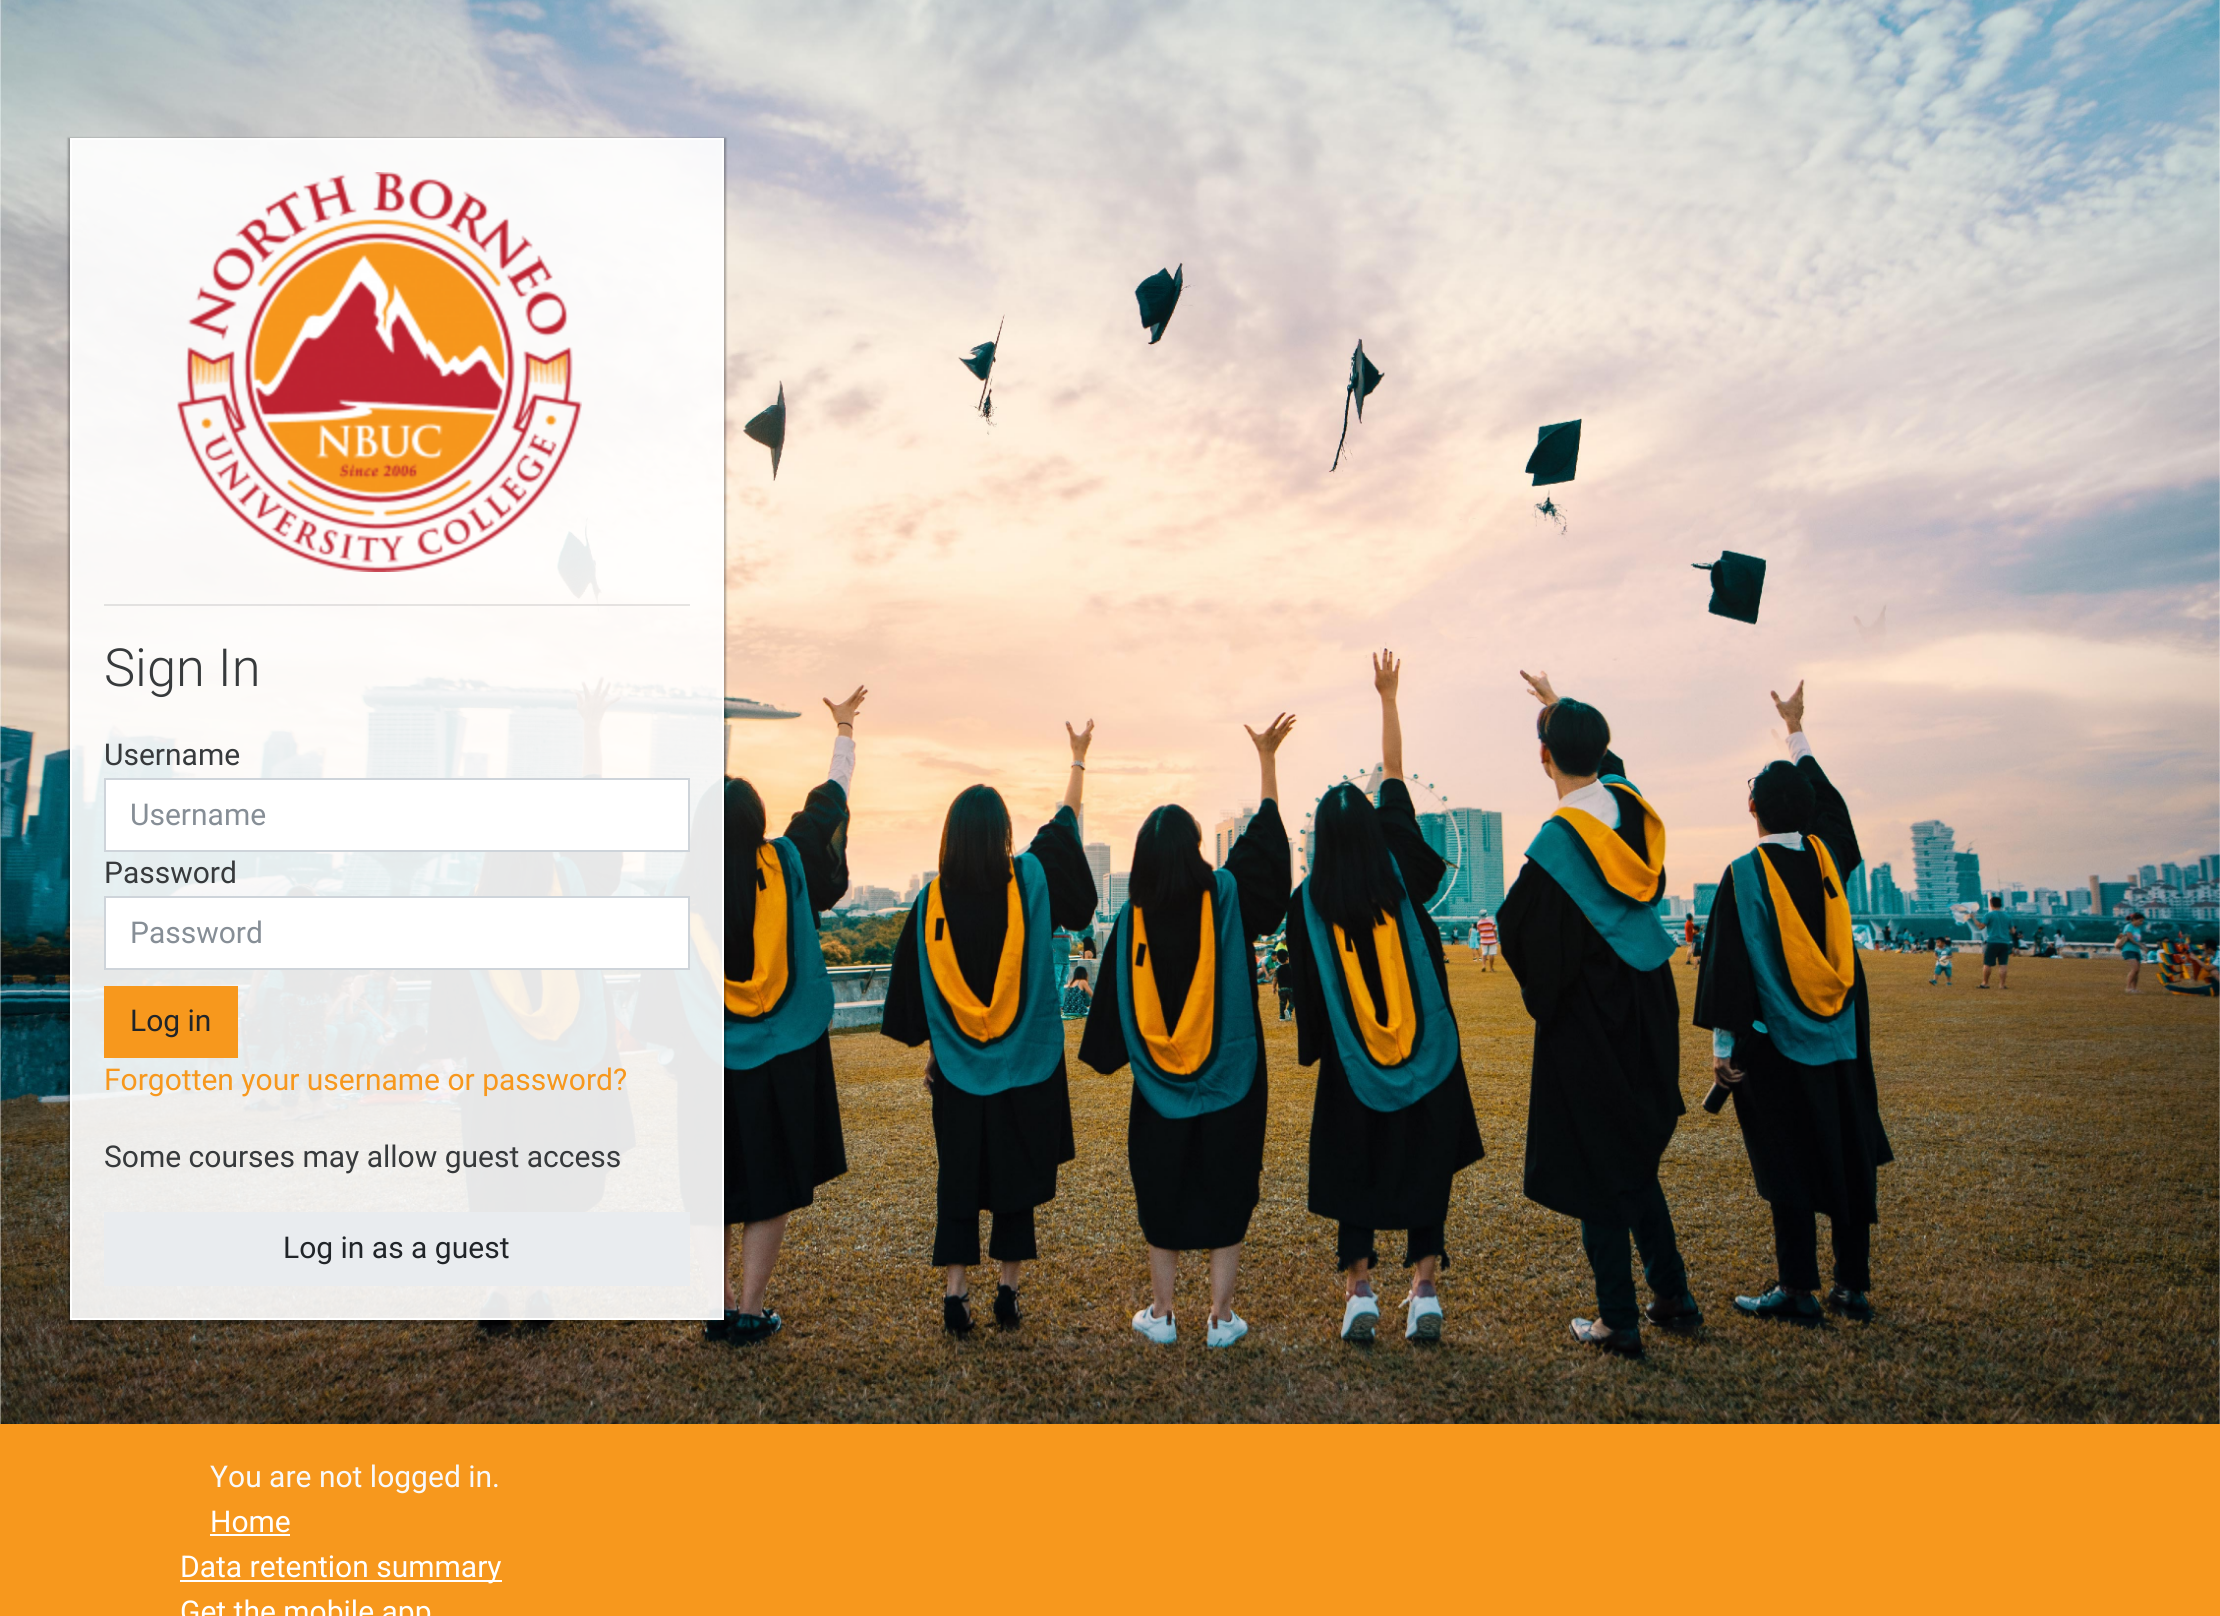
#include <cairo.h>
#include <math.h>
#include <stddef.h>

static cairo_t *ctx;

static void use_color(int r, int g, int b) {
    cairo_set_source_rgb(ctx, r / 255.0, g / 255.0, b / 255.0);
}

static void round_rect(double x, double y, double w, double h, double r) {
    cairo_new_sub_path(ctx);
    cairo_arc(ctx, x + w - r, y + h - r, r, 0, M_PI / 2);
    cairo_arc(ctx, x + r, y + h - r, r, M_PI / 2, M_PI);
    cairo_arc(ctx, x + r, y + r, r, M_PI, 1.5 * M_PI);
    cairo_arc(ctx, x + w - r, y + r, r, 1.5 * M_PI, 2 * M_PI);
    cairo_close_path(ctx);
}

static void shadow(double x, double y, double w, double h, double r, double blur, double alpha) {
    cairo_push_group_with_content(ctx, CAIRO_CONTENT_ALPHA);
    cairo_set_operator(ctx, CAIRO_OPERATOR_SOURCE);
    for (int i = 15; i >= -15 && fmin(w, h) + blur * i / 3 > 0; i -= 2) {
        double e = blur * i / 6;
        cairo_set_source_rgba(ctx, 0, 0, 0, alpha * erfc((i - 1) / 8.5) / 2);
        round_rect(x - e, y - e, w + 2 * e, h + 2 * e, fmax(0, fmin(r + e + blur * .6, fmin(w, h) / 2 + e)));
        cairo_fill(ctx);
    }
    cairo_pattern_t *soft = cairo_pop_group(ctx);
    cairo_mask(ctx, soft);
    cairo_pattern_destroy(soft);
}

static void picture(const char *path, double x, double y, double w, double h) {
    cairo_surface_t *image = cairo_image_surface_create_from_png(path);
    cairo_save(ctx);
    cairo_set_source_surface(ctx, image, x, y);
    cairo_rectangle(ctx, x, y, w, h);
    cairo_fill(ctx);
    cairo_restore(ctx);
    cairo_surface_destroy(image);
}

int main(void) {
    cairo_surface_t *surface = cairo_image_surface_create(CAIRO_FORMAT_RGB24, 2220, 1616);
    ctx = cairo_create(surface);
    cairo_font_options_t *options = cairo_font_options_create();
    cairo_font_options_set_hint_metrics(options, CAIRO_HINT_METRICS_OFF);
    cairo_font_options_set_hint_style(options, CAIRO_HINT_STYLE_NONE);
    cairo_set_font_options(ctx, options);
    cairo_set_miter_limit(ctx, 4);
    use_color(255, 255, 255);
    cairo_paint(ctx);
    picture("img1.png", 0, 0, 2220, 1424);
    cairo_save(ctx);
    cairo_set_fill_rule(ctx, CAIRO_FILL_RULE_EVEN_ODD);
    cairo_new_path(ctx);
    cairo_move_to(ctx, 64, 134);
    cairo_line_to(ctx, 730, 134);
    cairo_line_to(ctx, 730, 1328);
    cairo_line_to(ctx, 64, 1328);
    cairo_close_path(ctx);
    cairo_move_to(ctx, 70, 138);
    cairo_line_to(ctx, 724, 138);
    cairo_line_to(ctx, 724, 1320);
    cairo_line_to(ctx, 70, 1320);
    cairo_close_path(ctx);
    cairo_clip(ctx);
    use_color(0, 0, 0);
    shadow(68, 138, 658, 1186, 0, 1, 0.3);
    cairo_restore(ctx);
    cairo_set_source_rgba(ctx, 1, 1, 1, 0.9);
    cairo_rectangle(ctx, 71, 139, 652, 1180);
    cairo_fill_preserve(ctx);
    use_color(255, 255, 255);
    cairo_stroke(ctx);
    picture("img2.png", 177, 172, 405, 400);
    cairo_set_source_rgba(ctx, 0, 0, 0, 0.1);
    cairo_rectangle(ctx, 104, 604, 586, 2);
    cairo_fill(ctx);
    cairo_select_font_face(ctx, "Roboto Light", CAIRO_FONT_SLANT_NORMAL, CAIRO_FONT_WEIGHT_NORMAL);
    cairo_set_font_size(ctx, 52.5);
    use_color(55, 58, 60);
    cairo_move_to(ctx, 104, 686);
    cairo_show_text(ctx, "Sign In");
    cairo_select_font_face(ctx, "Roboto", CAIRO_FONT_SLANT_NORMAL, CAIRO_FONT_WEIGHT_NORMAL);
    cairo_set_font_size(ctx, 30);
    cairo_move_to(ctx, 104, 765);
    cairo_show_text(ctx, "Username");
    use_color(255, 255, 255);
    cairo_rectangle(ctx, 105, 779, 584, 72);
    cairo_fill_preserve(ctx);
    use_color(206, 212, 218);
    cairo_stroke(ctx);
    use_color(134, 142, 150);
    cairo_move_to(ctx, 130, 825);
    cairo_show_text(ctx, "Username");
    use_color(55, 58, 60);
    cairo_move_to(ctx, 104, 883);
    cairo_show_text(ctx, "Password");
    use_color(255, 255, 255);
    cairo_rectangle(ctx, 105, 897, 584, 72);
    cairo_fill_preserve(ctx);
    use_color(206, 212, 218);
    cairo_stroke(ctx);
    use_color(134, 142, 150);
    cairo_move_to(ctx, 130, 943);
    cairo_show_text(ctx, "Password");
    use_color(247, 152, 29);
    cairo_rectangle(ctx, 104, 986, 134, 72);
    cairo_fill(ctx);
    use_color(33, 37, 41);
    cairo_move_to(ctx, 130, 1031);
    cairo_show_text(ctx, "Log in");
    use_color(247, 152, 29);
    cairo_move_to(ctx, 104, 1090);
    cairo_show_text(ctx, "Forgotten your username or password?");
    use_color(55, 58, 60);
    cairo_move_to(ctx, 104, 1167);
    cairo_show_text(ctx, "Some courses may allow guest access");
    use_color(233, 236, 239);
    cairo_rectangle(ctx, 104, 1212, 586, 74);
    cairo_fill(ctx);
    use_color(33, 37, 41);
    cairo_move_to(ctx, 283, 1258);
    cairo_show_text(ctx, "Log in as a guest");
    use_color(247, 152, 29);
    cairo_rectangle(ctx, 0, 1424, 2220, 192);
    cairo_fill(ctx);
    use_color(248, 249, 250);
    cairo_move_to(ctx, 210, 1487);
    cairo_show_text(ctx, "You are not logged in.");
    use_color(255, 255, 255);
    cairo_move_to(ctx, 210, 1532);
    cairo_show_text(ctx, "Home");
    cairo_rectangle(ctx, 210, 1534, 80, 2);
    cairo_fill(ctx);
    cairo_rectangle(ctx, 180, 1580, 322, 2);
    cairo_fill(ctx);
    cairo_move_to(ctx, 180, 1577);
    cairo_show_text(ctx, "Data retention summary");
    cairo_move_to(ctx, 180, 1622);
    cairo_show_text(ctx, "Get the mobile app");
    cairo_surface_write_to_png(surface, "result.png");
    cairo_font_options_destroy(options);
    cairo_destroy(ctx);
    cairo_surface_destroy(surface);
    return 0;
}
